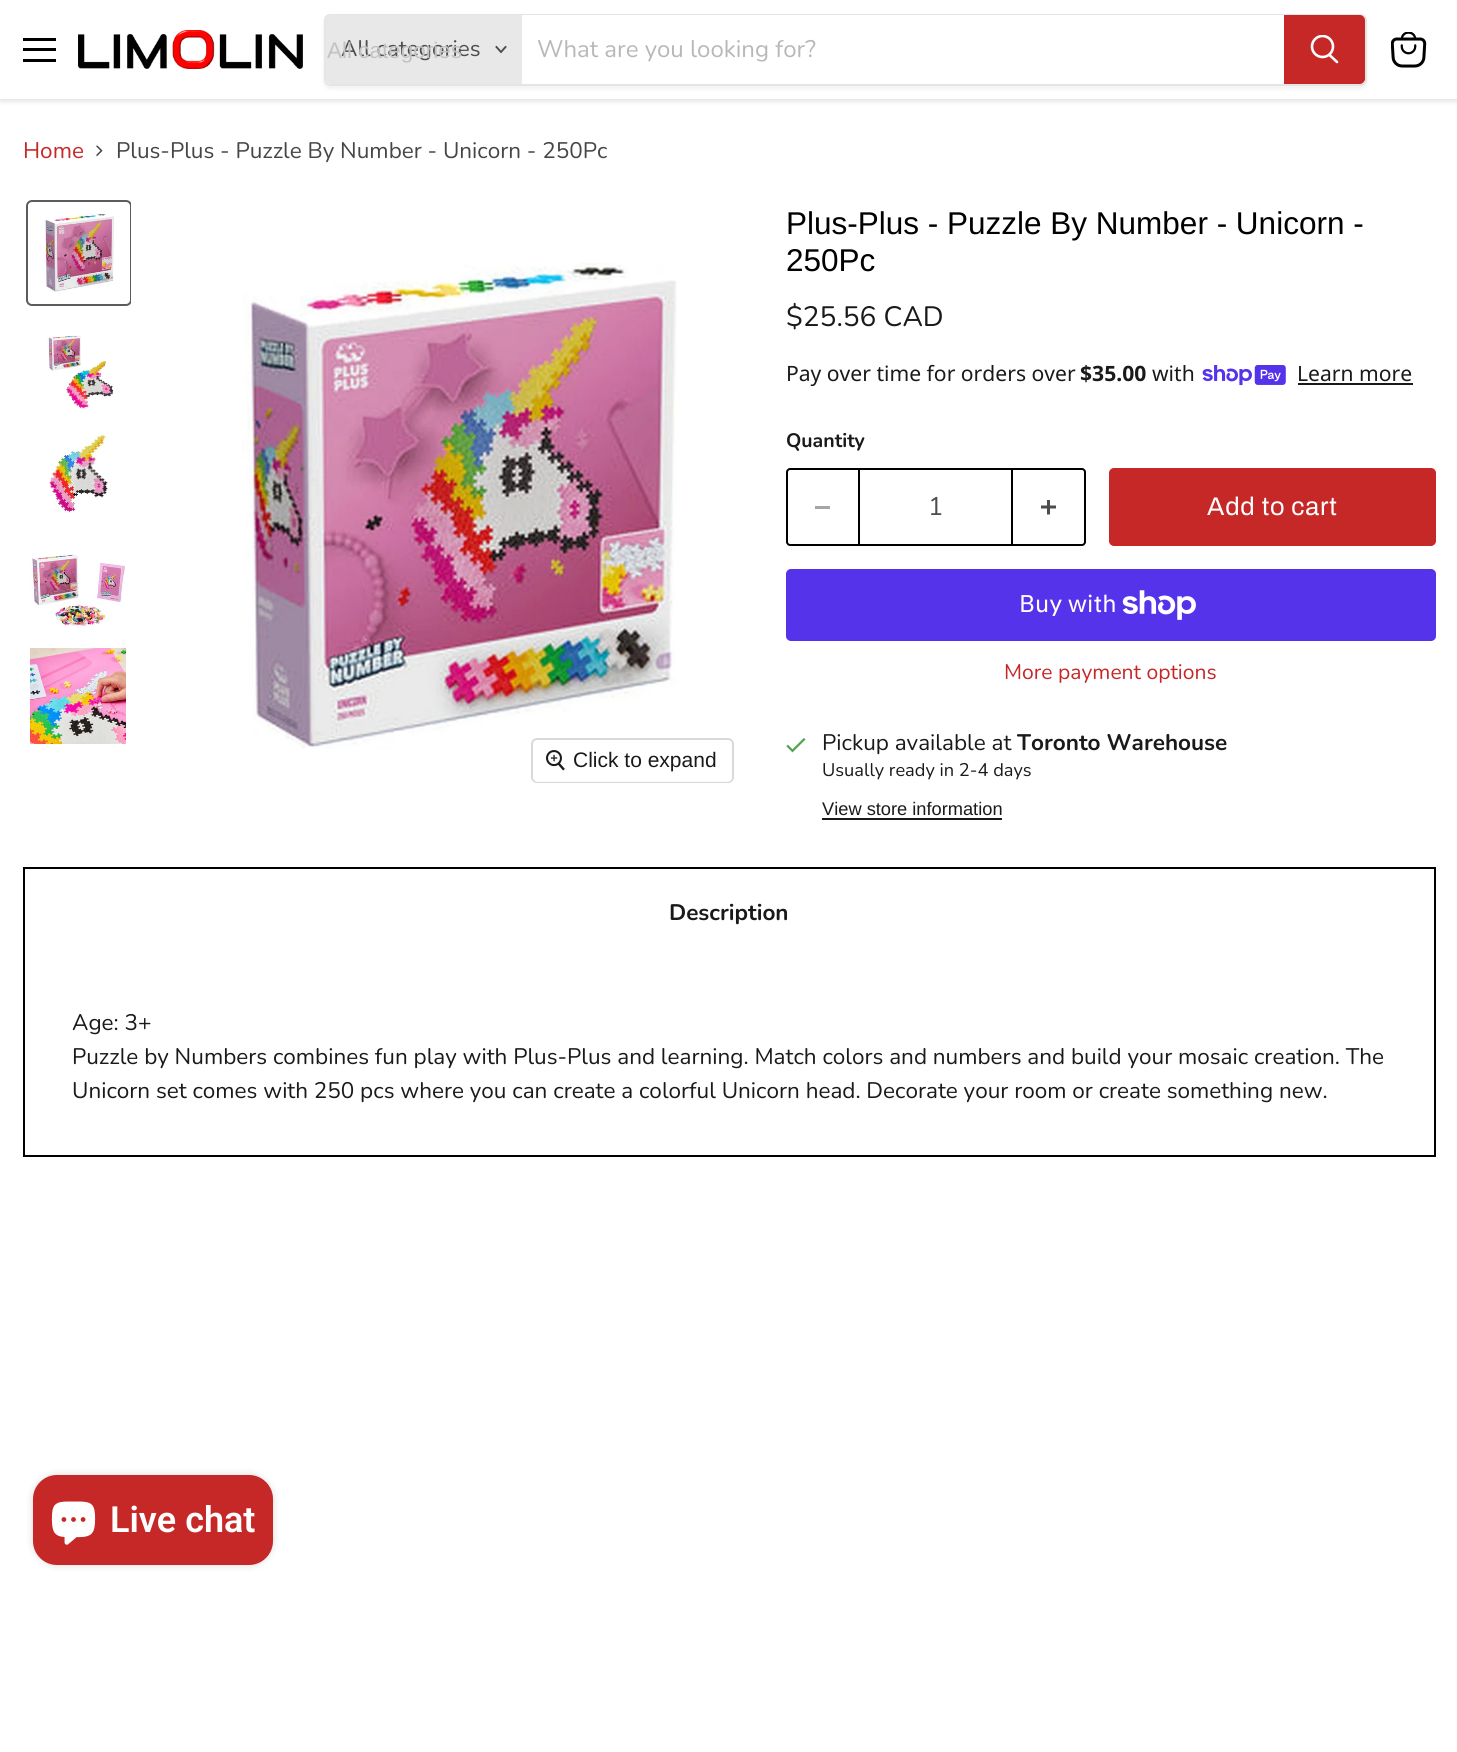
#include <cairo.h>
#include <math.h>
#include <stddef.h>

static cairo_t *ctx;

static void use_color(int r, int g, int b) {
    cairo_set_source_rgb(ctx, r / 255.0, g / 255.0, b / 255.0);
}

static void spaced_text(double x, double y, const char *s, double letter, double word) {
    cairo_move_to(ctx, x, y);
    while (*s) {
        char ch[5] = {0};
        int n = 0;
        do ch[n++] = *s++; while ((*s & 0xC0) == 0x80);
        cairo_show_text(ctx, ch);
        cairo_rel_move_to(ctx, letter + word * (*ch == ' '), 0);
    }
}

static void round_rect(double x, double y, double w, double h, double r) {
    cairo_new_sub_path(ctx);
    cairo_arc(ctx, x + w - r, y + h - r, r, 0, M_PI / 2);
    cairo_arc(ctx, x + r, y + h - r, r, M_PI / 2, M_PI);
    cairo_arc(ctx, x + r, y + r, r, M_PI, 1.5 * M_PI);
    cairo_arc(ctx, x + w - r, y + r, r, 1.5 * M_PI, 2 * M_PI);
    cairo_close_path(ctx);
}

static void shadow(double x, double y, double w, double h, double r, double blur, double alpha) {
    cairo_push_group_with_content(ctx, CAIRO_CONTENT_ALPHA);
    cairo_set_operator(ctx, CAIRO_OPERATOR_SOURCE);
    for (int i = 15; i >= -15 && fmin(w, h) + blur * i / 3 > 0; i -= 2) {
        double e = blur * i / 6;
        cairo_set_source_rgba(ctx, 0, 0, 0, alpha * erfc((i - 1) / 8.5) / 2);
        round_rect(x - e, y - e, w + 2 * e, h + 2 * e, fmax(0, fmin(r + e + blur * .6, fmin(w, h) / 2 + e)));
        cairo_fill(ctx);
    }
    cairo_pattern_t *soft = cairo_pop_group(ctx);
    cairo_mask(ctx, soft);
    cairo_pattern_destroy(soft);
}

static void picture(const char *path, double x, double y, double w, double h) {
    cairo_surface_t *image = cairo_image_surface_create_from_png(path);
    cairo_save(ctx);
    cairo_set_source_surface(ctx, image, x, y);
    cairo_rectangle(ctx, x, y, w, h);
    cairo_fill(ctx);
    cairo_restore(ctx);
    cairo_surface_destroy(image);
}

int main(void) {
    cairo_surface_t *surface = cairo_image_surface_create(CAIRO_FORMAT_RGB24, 1457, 1752);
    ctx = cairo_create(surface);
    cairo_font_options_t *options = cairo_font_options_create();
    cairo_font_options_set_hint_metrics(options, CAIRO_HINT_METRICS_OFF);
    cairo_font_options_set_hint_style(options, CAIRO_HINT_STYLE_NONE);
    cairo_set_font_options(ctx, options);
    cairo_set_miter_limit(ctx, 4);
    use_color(255, 255, 255);
    cairo_paint(ctx);
    cairo_save(ctx);
    cairo_rectangle(ctx, 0, 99, 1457, 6);
    cairo_clip(ctx);
    use_color(128, 128, 128);
    shadow(0, 2, 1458, 99, 0, 3, 0.25);
    cairo_restore(ctx);
    use_color(0, 0, 0);
    cairo_rectangle(ctx, 23, 38, 33, 3);
    cairo_fill(ctx);
    cairo_rectangle(ctx, 23, 48, 33, 3);
    cairo_fill(ctx);
    cairo_rectangle(ctx, 23, 59, 33, 3);
    cairo_fill(ctx);
    picture("img1.png", 78, 30, 225, 39);
    cairo_save(ctx);
    cairo_set_fill_rule(ctx, CAIRO_FILL_RULE_EVEN_ODD);
    cairo_new_path(ctx);
    cairo_move_to(ctx, 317, 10);
    cairo_line_to(ctx, 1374, 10);
    cairo_line_to(ctx, 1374, 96);
    cairo_line_to(ctx, 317, 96);
    cairo_close_path(ctx);
    cairo_move_to(ctx, 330, 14);
    cairo_line_to(ctx, 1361, 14);
    cairo_curve_to(ctx, 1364.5, 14, 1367, 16.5, 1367, 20);
    cairo_line_to(ctx, 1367, 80);
    cairo_curve_to(ctx, 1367, 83.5, 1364.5, 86, 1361, 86);
    cairo_line_to(ctx, 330, 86);
    cairo_curve_to(ctx, 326.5, 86, 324, 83.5, 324, 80);
    cairo_line_to(ctx, 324, 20);
    cairo_curve_to(ctx, 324, 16.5, 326.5, 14, 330, 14);
    cairo_close_path(ctx);
    cairo_clip(ctx);
    use_color(128, 128, 128);
    shadow(324, 17, 1043, 72, 6, 2, 0.11);
    cairo_restore(ctx);
    round_rect(325, 15, 1041, 70, 5);
    cairo_set_source_rgba(ctx, 0.502, 0.502, 0.502, 0.2);
    cairo_stroke(ctx);
    use_color(232, 232, 232);
    cairo_new_path(ctx);
    cairo_move_to(ctx, 331, 15);
    cairo_line_to(ctx, 522, 15);
    cairo_line_to(ctx, 522, 84);
    cairo_line_to(ctx, 331, 84);
    cairo_curve_to(ctx, 328, 84, 326, 82, 326, 79);
    cairo_line_to(ctx, 326, 20);
    cairo_curve_to(ctx, 326, 17, 328, 15, 331, 15);
    cairo_close_path(ctx);
    cairo_fill(ctx);
    cairo_select_font_face(ctx, "Nunito", CAIRO_FONT_SLANT_NORMAL, CAIRO_FONT_WEIGHT_NORMAL);
    cairo_set_font_size(ctx, 22.5);
    use_color(77, 77, 77);
    cairo_move_to(ctx, 341, 56);
    cairo_show_text(ctx, "All categories");
    cairo_select_font_face(ctx, "Liberation Sans", CAIRO_FONT_SLANT_NORMAL, CAIRO_FONT_WEIGHT_NORMAL);
    use_color(194, 194, 194);
    cairo_move_to(ctx, 327, 58);
    cairo_show_text(ctx, "All categories");
    cairo_new_path(ctx);
    cairo_move_to(ctx, 501, 52);
    cairo_line_to(ctx, 505.5, 47);
    cairo_move_to(ctx, 501, 52);
    cairo_line_to(ctx, 496.5, 47);
    use_color(77, 77, 77);
    cairo_set_line_width(ctx, 1.9);
    cairo_set_line_cap(ctx, CAIRO_LINE_CAP_SQUARE);
    cairo_stroke(ctx);
    use_color(255, 255, 255);
    cairo_rectangle(ctx, 522, 15, 762, 1);
    cairo_fill(ctx);
    cairo_select_font_face(ctx, "Nunito", CAIRO_FONT_SLANT_NORMAL, CAIRO_FONT_WEIGHT_NORMAL);
    cairo_set_font_size(ctx, 24);
    use_color(184, 184, 184);
    cairo_move_to(ctx, 537, 57);
    cairo_show_text(ctx, "What are you looking for?");
    use_color(198, 40, 40);
    cairo_new_path(ctx);
    cairo_move_to(ctx, 1285, 16);
    cairo_line_to(ctx, 1360, 16);
    cairo_curve_to(ctx, 1362, 16, 1364, 18, 1364, 20);
    cairo_line_to(ctx, 1364, 79);
    cairo_curve_to(ctx, 1364, 81, 1362, 83, 1360, 83);
    cairo_line_to(ctx, 1285, 83);
    cairo_close_path(ctx);
    cairo_fill_preserve(ctx);
    cairo_set_line_width(ctx, 2);
    cairo_set_line_cap(ctx, CAIRO_LINE_CAP_BUTT);
    cairo_stroke(ctx);
    cairo_new_path(ctx);
    cairo_move_to(ctx, 1337, 62);
    cairo_line_to(ctx, 1329.5, 55);
    use_color(255, 255, 255);
    cairo_set_line_width(ctx, 2.6);
    cairo_set_line_cap(ctx, CAIRO_LINE_CAP_ROUND);
    cairo_stroke(ctx);
    cairo_save(ctx);
    cairo_rectangle(ctx, 1310, 35, 30, 31);
    cairo_clip(ctx);
    cairo_arc(ctx, 1322.5, 46.5, 10.5, 0, 2 * M_PI);
    cairo_set_line_cap(ctx, CAIRO_LINE_CAP_BUTT);
    cairo_stroke(ctx);
    cairo_restore(ctx);
    picture("img2.png", 1391, 32, 36, 36);
    cairo_set_font_size(ctx, 22.5);
    use_color(198, 40, 40);
    cairo_move_to(ctx, 23, 158);
    cairo_show_text(ctx, "Home");
    picture("img3.png", 96, 145, 7, 12);
    use_color(70, 70, 70);
    cairo_move_to(ctx, 116, 158);
    cairo_show_text(ctx, "Plus-Plus - Puzzle By Number - Unicorn - 250Pc");
    cairo_save(ctx);
    cairo_rectangle(ctx, 23, 197, 108, 555);
    cairo_clip(ctx);
    round_rect(27, 201, 104, 104, 5);
    use_color(92, 92, 92);
    cairo_set_line_width(ctx, 2);
    cairo_set_line_cap(ctx, CAIRO_LINE_CAP_BUTT);
    cairo_stroke(ctx);
    cairo_restore(ctx);
    picture("img4.png", 44, 213, 71, 80);
    picture("img5.png", 47, 335, 67, 74);
    picture("img6.png", 47, 434, 61, 79);
    picture("img7.png", 30, 554, 95, 73);
    picture("img8.png", 30, 648, 96, 96);
    picture("img9.png", 242, 263, 435, 486);
    round_rect(532, 739, 201, 43, 5);
    use_color(217, 217, 217);
    cairo_set_line_width(ctx, 2);
    cairo_set_line_cap(ctx, CAIRO_LINE_CAP_BUTT);
    cairo_stroke(ctx);
    cairo_set_source_rgba(ctx, 1, 1, 1, 0.9);
    round_rect(533, 740, 199, 42, 5);
    cairo_fill(ctx);
    picture("img10.png", 546, 750, 19, 21);
    cairo_select_font_face(ctx, "Liberation Sans", CAIRO_FONT_SLANT_NORMAL, CAIRO_FONT_WEIGHT_NORMAL);
    cairo_set_font_size(ctx, 21);
    use_color(26, 26, 26);
    cairo_move_to(ctx, 573, 767);
    cairo_show_text(ctx, "Click to expand");
    cairo_select_font_face(ctx, "Arimo", CAIRO_FONT_SLANT_NORMAL, CAIRO_FONT_WEIGHT_NORMAL);
    cairo_set_font_size(ctx, 31.5);
    use_color(0, 0, 0);
    cairo_move_to(ctx, 786, 234);
    cairo_show_text(ctx, "Plus-Plus - Puzzle By Number - Unicorn -");
    cairo_move_to(ctx, 786, 271);
    cairo_show_text(ctx, "250Pc");
    cairo_select_font_face(ctx, "Nunito", CAIRO_FONT_SLANT_NORMAL, CAIRO_FONT_WEIGHT_NORMAL);
    cairo_set_font_size(ctx, 28);
    use_color(26, 26, 26);
    cairo_move_to(ctx, 786, 326);
    cairo_show_text(ctx, "$25.56 CAD");
    cairo_select_font_face(ctx, "Noto Sans", CAIRO_FONT_SLANT_NORMAL, CAIRO_FONT_WEIGHT_NORMAL);
    cairo_set_font_size(ctx, 21.1);
    cairo_move_to(ctx, 786, 381);
    cairo_show_text(ctx, "Pay over time for orders over");
    cairo_select_font_face(ctx, "Noto Sans", CAIRO_FONT_SLANT_NORMAL, CAIRO_FONT_WEIGHT_BOLD);
    cairo_move_to(ctx, 1080, 381);
    cairo_show_text(ctx, "$35.00");
    cairo_select_font_face(ctx, "Noto Sans", CAIRO_FONT_SLANT_NORMAL, CAIRO_FONT_WEIGHT_NORMAL);
    cairo_move_to(ctx, 1152, 381);
    cairo_show_text(ctx, "with");
    picture("img11.png", 1202, 365, 84, 21);
    cairo_move_to(ctx, 1297, 381);
    cairo_show_text(ctx, "Learn more");
    cairo_rectangle(ctx, 1298, 383, 115, 2);
    cairo_fill(ctx);
    cairo_select_font_face(ctx, "Nunito", CAIRO_FONT_SLANT_NORMAL, CAIRO_FONT_WEIGHT_BOLD);
    cairo_set_font_size(ctx, 19.5);
    cairo_move_to(ctx, 786, 447);
    cairo_show_text(ctx, "Quantity");
    use_color(0, 0, 0);
    cairo_set_fill_rule(ctx, CAIRO_FILL_RULE_EVEN_ODD);
    cairo_new_path(ctx);
    cairo_move_to(ctx, 790, 468);
    cairo_line_to(ctx, 858, 468);
    cairo_line_to(ctx, 858, 546);
    cairo_line_to(ctx, 790, 546);
    cairo_curve_to(ctx, 788, 546, 786, 544, 786, 542);
    cairo_line_to(ctx, 786, 472);
    cairo_curve_to(ctx, 786, 470, 788, 468, 790, 468);
    cairo_close_path(ctx);
    cairo_move_to(ctx, 790, 470);
    cairo_line_to(ctx, 858, 470);
    cairo_line_to(ctx, 858, 544);
    cairo_line_to(ctx, 790, 544);
    cairo_curve_to(ctx, 789, 544, 788, 543, 788, 542);
    cairo_line_to(ctx, 788, 472);
    cairo_curve_to(ctx, 788, 471, 789, 470, 790, 470);
    cairo_close_path(ctx);
    cairo_fill(ctx);
    use_color(166, 166, 166);
    cairo_rectangle(ctx, 815, 506, 15, 3);
    cairo_fill(ctx);
    cairo_rectangle(ctx, 859, 469, 153, 76);
    use_color(0, 0, 0);
    cairo_stroke(ctx);
    cairo_select_font_face(ctx, "Nunito", CAIRO_FONT_SLANT_NORMAL, CAIRO_FONT_WEIGHT_NORMAL);
    cairo_set_font_size(ctx, 25.5);
    use_color(77, 77, 77);
    cairo_move_to(ctx, 928, 515);
    cairo_show_text(ctx, "1");
    use_color(0, 0, 0);
    cairo_new_path(ctx);
    cairo_move_to(ctx, 1012, 468);
    cairo_line_to(ctx, 1082, 468);
    cairo_curve_to(ctx, 1084, 468, 1086, 470, 1086, 472);
    cairo_line_to(ctx, 1086, 542);
    cairo_curve_to(ctx, 1086, 544, 1084, 546, 1082, 546);
    cairo_line_to(ctx, 1012, 546);
    cairo_close_path(ctx);
    cairo_move_to(ctx, 1012, 470);
    cairo_line_to(ctx, 1082, 470);
    cairo_curve_to(ctx, 1083, 470, 1084, 471, 1084, 472);
    cairo_line_to(ctx, 1084, 542);
    cairo_curve_to(ctx, 1084, 543, 1083, 544, 1082, 544);
    cairo_line_to(ctx, 1012, 544);
    cairo_close_path(ctx);
    cairo_fill(ctx);
    picture("img12.png", 1041, 500, 15, 15);
    use_color(198, 40, 40);
    round_rect(1110, 469, 325, 76, 4);
    cairo_fill_preserve(ctx);
    cairo_stroke(ctx);
    cairo_select_font_face(ctx, "Archivo", CAIRO_FONT_SLANT_NORMAL, CAIRO_FONT_WEIGHT_NORMAL);
    use_color(255, 255, 255);
    spaced_text(1207, 515, "Add to cart", 0.75, 0);
    use_color(84, 51, 235);
    round_rect(786, 569, 650, 72, 5);
    cairo_fill(ctx);
    cairo_select_font_face(ctx, "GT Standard", CAIRO_FONT_SLANT_NORMAL, CAIRO_FONT_WEIGHT_NORMAL);
    cairo_set_font_size(ctx, 24);
    use_color(255, 255, 255);
    cairo_move_to(ctx, 1019, 612);
    cairo_show_text(ctx, "Buy with");
    picture("img13.png", 1122, 590, 74, 30);
    cairo_select_font_face(ctx, "Nunito", CAIRO_FONT_SLANT_NORMAL, CAIRO_FONT_WEIGHT_NORMAL);
    cairo_set_font_size(ctx, 21.1);
    use_color(198, 40, 40);
    cairo_move_to(ctx, 1004, 679);
    cairo_show_text(ctx, "More payment options");
    picture("img14.png", 786, 738, 20, 15);
    cairo_set_font_size(ctx, 22.5);
    use_color(26, 26, 26);
    cairo_move_to(ctx, 822, 750);
    cairo_show_text(ctx, "Pickup available at");
    cairo_select_font_face(ctx, "Nunito", CAIRO_FONT_SLANT_NORMAL, CAIRO_FONT_WEIGHT_BOLD);
    cairo_move_to(ctx, 1017, 750);
    cairo_show_text(ctx, "Toronto Warehouse");
    cairo_select_font_face(ctx, "Nunito", CAIRO_FONT_SLANT_NORMAL, CAIRO_FONT_WEIGHT_NORMAL);
    cairo_set_font_size(ctx, 18.25);
    cairo_move_to(ctx, 822, 776);
    cairo_show_text(ctx, "Usually ready in 2-4 days");
    cairo_select_font_face(ctx, "Liberation Sans", CAIRO_FONT_SLANT_NORMAL, CAIRO_FONT_WEIGHT_NORMAL);
    cairo_move_to(ctx, 822, 815);
    cairo_show_text(ctx, "View store information");
    cairo_rectangle(ctx, 822, 818, 180, 2);
    cairo_fill(ctx);
    use_color(0, 0, 0);
    cairo_rectangle(ctx, 23, 867, 1413, 2);
    cairo_fill(ctx);
    cairo_rectangle(ctx, 1434, 867, 2, 290);
    cairo_fill(ctx);
    cairo_rectangle(ctx, 23, 867, 2, 92);
    cairo_fill(ctx);
    cairo_select_font_face(ctx, "Nunito", CAIRO_FONT_SLANT_NORMAL, CAIRO_FONT_WEIGHT_BOLD);
    cairo_set_font_size(ctx, 22.5);
    use_color(26, 26, 26);
    cairo_move_to(ctx, 669, 920);
    cairo_show_text(ctx, "Description");
    use_color(0, 0, 0);
    cairo_rectangle(ctx, 23, 1155, 1413, 2);
    cairo_fill(ctx);
    cairo_rectangle(ctx, 23, 959, 2, 198);
    cairo_fill(ctx);
    cairo_select_font_face(ctx, "Nunito", CAIRO_FONT_SLANT_NORMAL, CAIRO_FONT_WEIGHT_NORMAL);
    use_color(26, 26, 26);
    cairo_move_to(ctx, 72, 1030);
    cairo_show_text(ctx, "Age: 3+");
    cairo_move_to(ctx, 72, 1064);
    cairo_show_text(ctx, "Puzzle by Numbers combines fun play with Plus-Plus and learning. Match colors and numbers and build your mosaic creation. The");
    cairo_move_to(ctx, 72, 1098);
    cairo_show_text(ctx, "Unicorn set comes with 250 pcs where you can create a colorful Unicorn head. Decorate your room or create something new.");
    use_color(0, 0, 0);
    shadow(33, 1475, 240, 90, 24, 4, 0.15);
    use_color(198, 40, 40);
    round_rect(33, 1475, 240, 90, 24);
    cairo_fill(ctx);
    picture("img15.png", 51, 1501, 45, 44);
    cairo_select_font_face(ctx, "Roboto SemiBold", CAIRO_FONT_SLANT_NORMAL, CAIRO_FONT_WEIGHT_NORMAL);
    cairo_set_font_size(ctx, 36);
    use_color(255, 255, 255);
    cairo_move_to(ctx, 110, 1532);
    cairo_show_text(ctx, "Live chat");
    cairo_surface_write_to_png(surface, "result.png");
    cairo_font_options_destroy(options);
    cairo_destroy(ctx);
    cairo_surface_destroy(surface);
    return 0;
}
